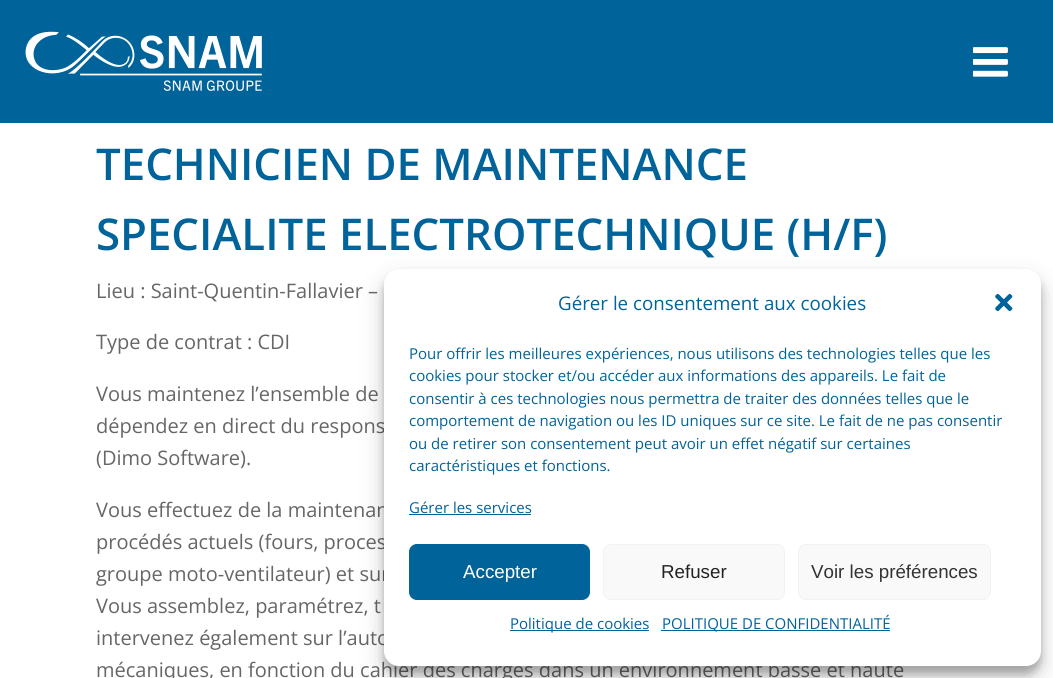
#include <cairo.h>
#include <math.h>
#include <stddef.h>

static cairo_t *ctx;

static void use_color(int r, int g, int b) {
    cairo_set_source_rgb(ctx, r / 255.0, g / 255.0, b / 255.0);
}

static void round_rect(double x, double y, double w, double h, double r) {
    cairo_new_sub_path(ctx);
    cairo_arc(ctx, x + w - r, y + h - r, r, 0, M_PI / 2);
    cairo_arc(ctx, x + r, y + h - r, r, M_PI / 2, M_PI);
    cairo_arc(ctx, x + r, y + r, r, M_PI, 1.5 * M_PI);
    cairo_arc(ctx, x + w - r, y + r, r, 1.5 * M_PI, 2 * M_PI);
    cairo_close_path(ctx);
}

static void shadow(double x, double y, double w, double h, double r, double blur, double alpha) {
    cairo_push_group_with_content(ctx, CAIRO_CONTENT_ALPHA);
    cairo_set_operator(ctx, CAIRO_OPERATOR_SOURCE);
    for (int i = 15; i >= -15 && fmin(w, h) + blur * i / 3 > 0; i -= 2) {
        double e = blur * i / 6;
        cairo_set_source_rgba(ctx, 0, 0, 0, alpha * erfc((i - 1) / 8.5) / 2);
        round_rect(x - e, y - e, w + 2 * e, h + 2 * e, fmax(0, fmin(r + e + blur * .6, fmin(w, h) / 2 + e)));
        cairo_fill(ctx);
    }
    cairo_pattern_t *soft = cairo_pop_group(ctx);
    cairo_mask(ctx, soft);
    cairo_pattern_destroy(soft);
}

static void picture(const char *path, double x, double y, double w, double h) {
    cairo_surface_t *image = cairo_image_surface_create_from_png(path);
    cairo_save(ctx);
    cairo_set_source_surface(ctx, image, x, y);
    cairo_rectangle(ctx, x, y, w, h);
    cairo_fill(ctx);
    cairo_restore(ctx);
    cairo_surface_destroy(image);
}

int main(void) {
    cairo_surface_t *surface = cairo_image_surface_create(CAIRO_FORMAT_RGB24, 1053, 678);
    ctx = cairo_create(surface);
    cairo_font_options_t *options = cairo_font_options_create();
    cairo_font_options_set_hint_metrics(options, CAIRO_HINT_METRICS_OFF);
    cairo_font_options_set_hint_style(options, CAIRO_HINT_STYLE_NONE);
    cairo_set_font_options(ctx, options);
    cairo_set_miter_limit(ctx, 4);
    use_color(255, 255, 255);
    cairo_paint(ctx);
    use_color(0, 99, 153);
    cairo_rectangle(ctx, 0, 0, 1053, 123);
    cairo_fill(ctx);
    picture("img1.png", 25, 31, 237, 60);
    picture("img2.png", 973, 47, 35, 30);
    cairo_select_font_face(ctx, "Open Sans SemiBold", CAIRO_FONT_SLANT_NORMAL, CAIRO_FONT_WEIGHT_NORMAL);
    cairo_set_font_size(ctx, 43.75);
    cairo_move_to(ctx, 96, 180);
    cairo_show_text(ctx, "TECHNICIEN DE MAINTENANCE");
    cairo_move_to(ctx, 96, 250);
    cairo_show_text(ctx, "SPECIALITE ELECTROTECHNIQUE (H/F)");
    cairo_select_font_face(ctx, "Open Sans", CAIRO_FONT_SLANT_NORMAL, CAIRO_FONT_WEIGHT_NORMAL);
    cairo_set_font_size(ctx, 20);
    use_color(102, 102, 102);
    cairo_move_to(ctx, 96, 298);
    cairo_show_text(ctx, "Lieu : Saint-Quentin-Fallavier –");
    cairo_move_to(ctx, 96, 349);
    cairo_show_text(ctx, "Type de contrat : CDI");
    cairo_move_to(ctx, 96, 401);
    cairo_show_text(ctx, "Vous maintenez l’ensemble de");
    cairo_move_to(ctx, 96, 433);
    cairo_show_text(ctx, "dépendez en direct du respons");
    cairo_move_to(ctx, 96, 465);
    cairo_show_text(ctx, "(Dimo Software).");
    cairo_move_to(ctx, 96, 517);
    cairo_show_text(ctx, "Vous effectuez de la maintenan");
    cairo_move_to(ctx, 96, 549);
    cairo_show_text(ctx, "procédés actuels (fours, proces");
    cairo_move_to(ctx, 96, 581);
    cairo_show_text(ctx, "groupe moto-ventilateur) et sur");
    cairo_move_to(ctx, 96, 613);
    cairo_show_text(ctx, "Vous assemblez, paramétrez, t");
    cairo_move_to(ctx, 96, 645);
    cairo_show_text(ctx, "intervenez également sur l’auto");
    cairo_move_to(ctx, 96, 677);
    cairo_show_text(ctx, "mécaniques, en fonction du cahier des charges dans un environnement basse et haute");
    use_color(0, 0, 0);
    shadow(384, 276, 657, 398, 15, 4, 0.23);
    shadow(384, 281, 657, 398, 15, 12.5, 0.19);
    use_color(255, 255, 255);
    round_rect(384, 269, 657, 397, 15);
    cairo_fill(ctx);
    cairo_set_font_size(ctx, 18.75);
    use_color(0, 99, 153);
    cairo_move_to(ctx, 558, 310);
    cairo_show_text(ctx, "Gérer le consentement aux cookies");
    picture("img3.png", 995, 293, 18, 19);
    cairo_set_font_size(ctx, 15);
    cairo_move_to(ctx, 409, 359);
    cairo_show_text(ctx, "Pour offrir les meilleures expériences, nous utilisons des technologies telles que les");
    cairo_move_to(ctx, 409, 381);
    cairo_show_text(ctx, "cookies pour stocker et/ou accéder aux informations des appareils. Le fait de");
    cairo_move_to(ctx, 409, 404);
    cairo_show_text(ctx, "consentir à ces technologies nous permettra de traiter des données telles que le");
    cairo_move_to(ctx, 409, 426);
    cairo_show_text(ctx, "comportement de navigation ou les ID uniques sur ce site. Le fait de ne pas consentir");
    cairo_move_to(ctx, 409, 449);
    cairo_show_text(ctx, "ou de retirer son consentement peut avoir un effet négatif sur certaines");
    cairo_move_to(ctx, 409, 471);
    cairo_show_text(ctx, "caractéristiques et fonctions.");
    cairo_move_to(ctx, 409, 513);
    cairo_show_text(ctx, "Gérer les services");
    cairo_rectangle(ctx, 409, 514, 122, 1);
    cairo_fill(ctx);
    round_rect(409.5, 544.5, 180, 55, 7.5);
    cairo_fill_preserve(ctx);
    cairo_set_line_width(ctx, 1);
    cairo_stroke(ctx);
    cairo_select_font_face(ctx, "Liberation Sans", CAIRO_FONT_SLANT_NORMAL, CAIRO_FONT_WEIGHT_NORMAL);
    cairo_set_font_size(ctx, 18.75);
    use_color(255, 255, 255);
    cairo_move_to(ctx, 463, 578);
    cairo_show_text(ctx, "Accepter");
    use_color(249, 249, 249);
    round_rect(603.5, 544.5, 181, 55, 7.5);
    cairo_fill_preserve(ctx);
    use_color(242, 242, 242);
    cairo_stroke(ctx);
    use_color(34, 34, 34);
    cairo_move_to(ctx, 661, 578);
    cairo_show_text(ctx, "Refuser");
    use_color(249, 249, 249);
    round_rect(798.5, 544.5, 192, 55, 7.5);
    cairo_fill_preserve(ctx);
    use_color(242, 242, 242);
    cairo_stroke(ctx);
    use_color(51, 51, 51);
    cairo_move_to(ctx, 811, 578);
    cairo_show_text(ctx, "Voir les préférences");
    use_color(0, 99, 153);
    cairo_rectangle(ctx, 510, 630, 139, 1);
    cairo_fill(ctx);
    cairo_select_font_face(ctx, "Open Sans", CAIRO_FONT_SLANT_NORMAL, CAIRO_FONT_WEIGHT_NORMAL);
    cairo_set_font_size(ctx, 15);
    cairo_move_to(ctx, 510, 629);
    cairo_show_text(ctx, "Politique de cookies");
    cairo_rectangle(ctx, 661, 630, 229, 1);
    cairo_fill(ctx);
    cairo_move_to(ctx, 662, 629);
    cairo_show_text(ctx, "POLITIQUE DE CONFIDENTIALITÉ");
    cairo_surface_write_to_png(surface, "result.png");
    cairo_font_options_destroy(options);
    cairo_destroy(ctx);
    cairo_surface_destroy(surface);
    return 0;
}
